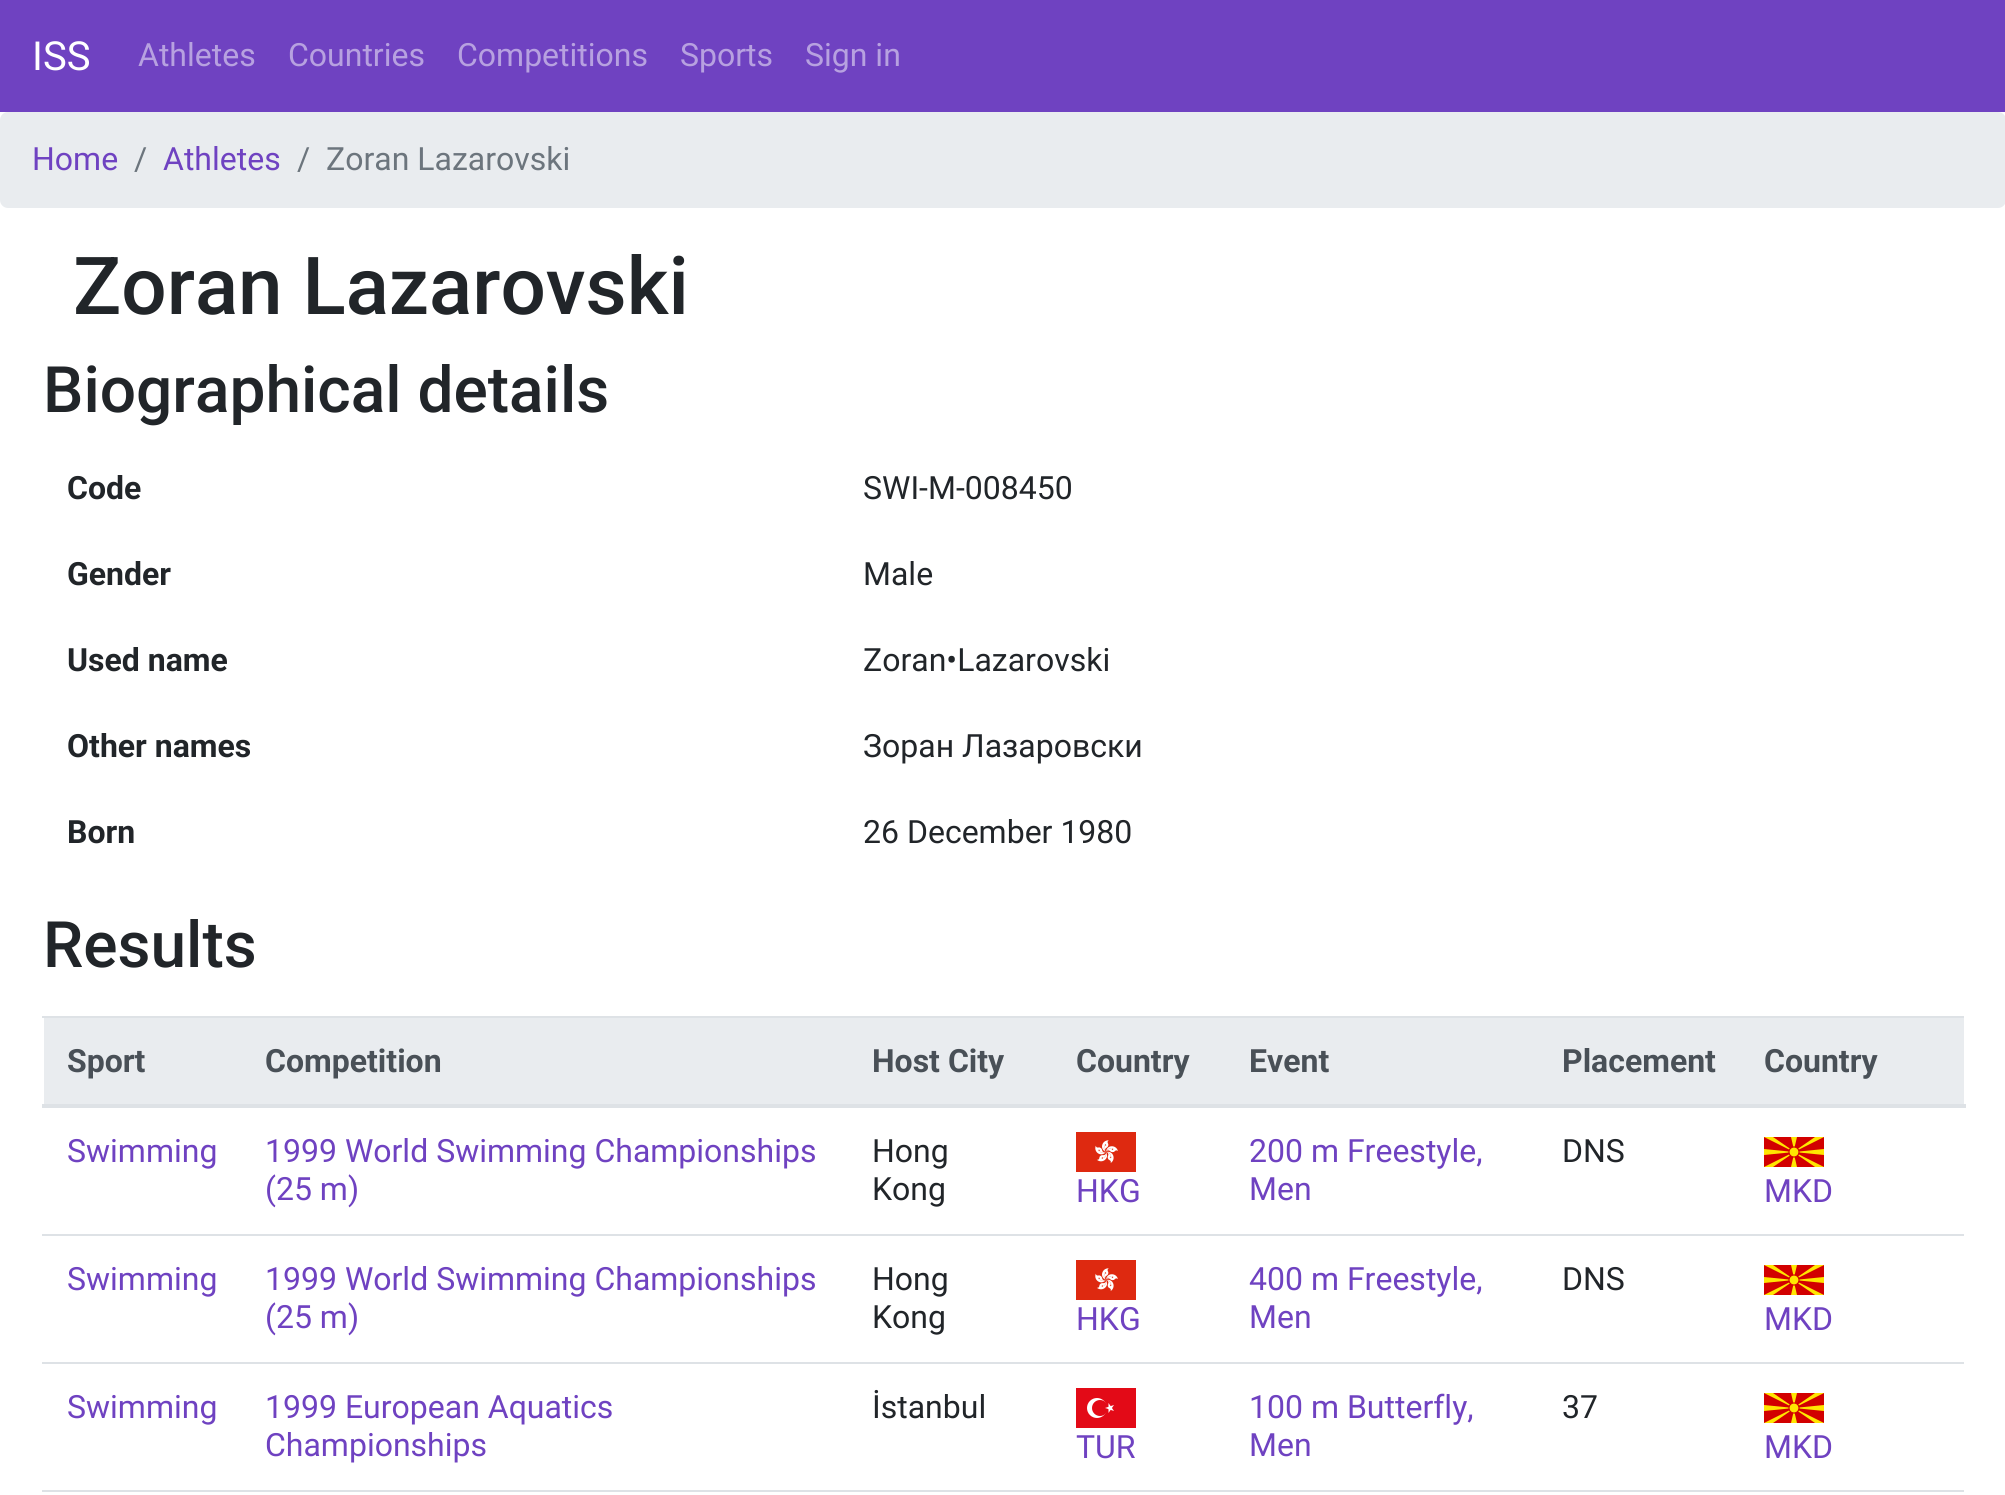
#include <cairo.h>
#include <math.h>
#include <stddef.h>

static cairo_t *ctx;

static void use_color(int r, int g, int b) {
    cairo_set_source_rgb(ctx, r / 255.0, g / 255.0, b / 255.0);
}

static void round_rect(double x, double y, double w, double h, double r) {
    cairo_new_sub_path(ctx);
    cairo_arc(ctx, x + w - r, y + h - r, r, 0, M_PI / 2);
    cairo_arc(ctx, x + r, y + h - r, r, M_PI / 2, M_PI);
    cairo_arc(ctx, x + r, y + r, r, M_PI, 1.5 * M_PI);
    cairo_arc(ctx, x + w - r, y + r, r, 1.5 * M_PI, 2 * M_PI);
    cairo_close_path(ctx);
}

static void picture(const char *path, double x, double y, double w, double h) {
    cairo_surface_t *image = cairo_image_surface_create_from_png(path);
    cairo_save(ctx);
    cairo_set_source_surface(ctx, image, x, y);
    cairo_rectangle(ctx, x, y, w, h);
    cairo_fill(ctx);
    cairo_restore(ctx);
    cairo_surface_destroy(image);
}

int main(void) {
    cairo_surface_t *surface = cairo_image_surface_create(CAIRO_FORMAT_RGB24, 2005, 1495);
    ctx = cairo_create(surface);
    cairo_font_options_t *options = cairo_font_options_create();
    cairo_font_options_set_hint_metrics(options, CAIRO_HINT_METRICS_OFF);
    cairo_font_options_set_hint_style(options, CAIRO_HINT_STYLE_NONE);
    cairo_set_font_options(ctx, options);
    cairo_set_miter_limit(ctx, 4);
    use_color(255, 255, 255);
    cairo_paint(ctx);
    use_color(111, 66, 193);
    cairo_rectangle(ctx, 0, 0, 2005, 112);
    cairo_fill(ctx);
    cairo_select_font_face(ctx, "Roboto", CAIRO_FONT_SLANT_NORMAL, CAIRO_FONT_WEIGHT_NORMAL);
    cairo_set_font_size(ctx, 40);
    use_color(255, 255, 255);
    cairo_move_to(ctx, 32, 70);
    cairo_show_text(ctx, "ISS");
    cairo_set_font_size(ctx, 32);
    use_color(183, 161, 224);
    cairo_move_to(ctx, 138, 66);
    cairo_show_text(ctx, "Athletes");
    cairo_move_to(ctx, 288, 66);
    cairo_show_text(ctx, "Countries");
    cairo_move_to(ctx, 457, 66);
    cairo_show_text(ctx, "Competitions");
    cairo_move_to(ctx, 680, 66);
    cairo_show_text(ctx, "Sports");
    cairo_move_to(ctx, 805, 66);
    cairo_show_text(ctx, "Sign in");
    use_color(233, 236, 239);
    round_rect(0, 112, 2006, 96, 8);
    cairo_fill(ctx);
    use_color(111, 66, 193);
    cairo_move_to(ctx, 32, 170);
    cairo_show_text(ctx, "Home");
    use_color(108, 117, 125);
    cairo_move_to(ctx, 134, 170);
    cairo_show_text(ctx, "/");
    use_color(111, 66, 193);
    cairo_move_to(ctx, 163, 170);
    cairo_show_text(ctx, "Athletes");
    use_color(108, 117, 125);
    cairo_move_to(ctx, 297, 170);
    cairo_show_text(ctx, "/");
    cairo_move_to(ctx, 326, 170);
    cairo_show_text(ctx, "Zoran Lazarovski");
    cairo_select_font_face(ctx, "Roboto Medium", CAIRO_FONT_SLANT_NORMAL, CAIRO_FONT_WEIGHT_NORMAL);
    cairo_set_font_size(ctx, 80);
    use_color(33, 37, 41);
    cairo_move_to(ctx, 73, 314);
    cairo_show_text(ctx, "Zoran Lazarovski");
    cairo_set_font_size(ctx, 64);
    cairo_move_to(ctx, 43, 412);
    cairo_show_text(ctx, "Biographical details");
    cairo_select_font_face(ctx, "Roboto", CAIRO_FONT_SLANT_NORMAL, CAIRO_FONT_WEIGHT_BOLD);
    cairo_set_font_size(ctx, 32);
    cairo_move_to(ctx, 67, 499);
    cairo_show_text(ctx, "Code");
    cairo_select_font_face(ctx, "Roboto", CAIRO_FONT_SLANT_NORMAL, CAIRO_FONT_WEIGHT_NORMAL);
    cairo_move_to(ctx, 863, 499);
    cairo_show_text(ctx, "SWI-M-008450");
    cairo_select_font_face(ctx, "Roboto", CAIRO_FONT_SLANT_NORMAL, CAIRO_FONT_WEIGHT_BOLD);
    cairo_move_to(ctx, 67, 585);
    cairo_show_text(ctx, "Gender");
    cairo_select_font_face(ctx, "Roboto", CAIRO_FONT_SLANT_NORMAL, CAIRO_FONT_WEIGHT_NORMAL);
    cairo_move_to(ctx, 863, 585);
    cairo_show_text(ctx, "Male");
    cairo_select_font_face(ctx, "Roboto", CAIRO_FONT_SLANT_NORMAL, CAIRO_FONT_WEIGHT_BOLD);
    cairo_move_to(ctx, 67, 671);
    cairo_show_text(ctx, "Used name");
    cairo_select_font_face(ctx, "Roboto", CAIRO_FONT_SLANT_NORMAL, CAIRO_FONT_WEIGHT_NORMAL);
    cairo_move_to(ctx, 863, 671);
    cairo_show_text(ctx, "Zoran•Lazarovski");
    cairo_select_font_face(ctx, "Roboto", CAIRO_FONT_SLANT_NORMAL, CAIRO_FONT_WEIGHT_BOLD);
    cairo_move_to(ctx, 67, 757);
    cairo_show_text(ctx, "Other names");
    cairo_select_font_face(ctx, "Roboto", CAIRO_FONT_SLANT_NORMAL, CAIRO_FONT_WEIGHT_NORMAL);
    cairo_move_to(ctx, 863, 757);
    cairo_show_text(ctx, "Зоран Лазаровски");
    cairo_select_font_face(ctx, "Roboto", CAIRO_FONT_SLANT_NORMAL, CAIRO_FONT_WEIGHT_BOLD);
    cairo_move_to(ctx, 67, 843);
    cairo_show_text(ctx, "Born");
    cairo_select_font_face(ctx, "Roboto", CAIRO_FONT_SLANT_NORMAL, CAIRO_FONT_WEIGHT_NORMAL);
    cairo_move_to(ctx, 863, 843);
    cairo_show_text(ctx, "26 December 1980");
    cairo_select_font_face(ctx, "Roboto Medium", CAIRO_FONT_SLANT_NORMAL, CAIRO_FONT_WEIGHT_NORMAL);
    cairo_set_font_size(ctx, 64);
    cairo_move_to(ctx, 43, 967);
    cairo_show_text(ctx, "Results");
    use_color(222, 226, 230);
    cairo_rectangle(ctx, 42, 1016, 1922, 2);
    cairo_fill(ctx);
    cairo_rectangle(ctx, 42, 1104, 1924, 4);
    cairo_fill(ctx);
    use_color(233, 236, 239);
    cairo_rectangle(ctx, 44, 1018, 1920, 86);
    cairo_fill(ctx);
    cairo_select_font_face(ctx, "Roboto", CAIRO_FONT_SLANT_NORMAL, CAIRO_FONT_WEIGHT_BOLD);
    cairo_set_font_size(ctx, 32);
    use_color(73, 80, 87);
    cairo_move_to(ctx, 67, 1072);
    cairo_show_text(ctx, "Sport");
    cairo_move_to(ctx, 265, 1072);
    cairo_show_text(ctx, "Competition");
    cairo_move_to(ctx, 872, 1072);
    cairo_show_text(ctx, "Host City");
    cairo_move_to(ctx, 1076, 1072);
    cairo_show_text(ctx, "Country");
    cairo_move_to(ctx, 1249, 1072);
    cairo_show_text(ctx, "Event");
    cairo_move_to(ctx, 1562, 1072);
    cairo_show_text(ctx, "Placement");
    cairo_move_to(ctx, 1764, 1072);
    cairo_show_text(ctx, "Country");
    cairo_select_font_face(ctx, "Roboto", CAIRO_FONT_SLANT_NORMAL, CAIRO_FONT_WEIGHT_NORMAL);
    use_color(111, 66, 193);
    cairo_move_to(ctx, 67, 1162);
    cairo_show_text(ctx, "Swimming");
    cairo_move_to(ctx, 265, 1162);
    cairo_show_text(ctx, "1999 World Swimming Championships");
    cairo_move_to(ctx, 265, 1200);
    cairo_show_text(ctx, "(25 m)");
    use_color(33, 37, 41);
    cairo_move_to(ctx, 872, 1162);
    cairo_show_text(ctx, "Hong");
    cairo_move_to(ctx, 872, 1200);
    cairo_show_text(ctx, "Kong");
    picture("img1.png", 1076, 1132, 60, 40);
    use_color(111, 66, 193);
    cairo_move_to(ctx, 1076, 1202);
    cairo_show_text(ctx, "HKG");
    cairo_move_to(ctx, 1249, 1162);
    cairo_show_text(ctx, "200 m Freestyle,");
    cairo_move_to(ctx, 1249, 1200);
    cairo_show_text(ctx, "Men");
    use_color(33, 37, 41);
    cairo_move_to(ctx, 1562, 1162);
    cairo_show_text(ctx, "DNS");
    picture("img2.png", 1764, 1137, 60, 30);
    use_color(111, 66, 193);
    cairo_move_to(ctx, 1764, 1202);
    cairo_show_text(ctx, "MKD");
    use_color(222, 226, 230);
    cairo_rectangle(ctx, 42, 1234, 1922, 2);
    cairo_fill(ctx);
    use_color(111, 66, 193);
    cairo_move_to(ctx, 67, 1290);
    cairo_show_text(ctx, "Swimming");
    cairo_move_to(ctx, 265, 1290);
    cairo_show_text(ctx, "1999 World Swimming Championships");
    cairo_move_to(ctx, 265, 1328);
    cairo_show_text(ctx, "(25 m)");
    use_color(33, 37, 41);
    cairo_move_to(ctx, 872, 1290);
    cairo_show_text(ctx, "Hong");
    cairo_move_to(ctx, 872, 1328);
    cairo_show_text(ctx, "Kong");
    picture("img1.png", 1076, 1260, 60, 40);
    use_color(111, 66, 193);
    cairo_move_to(ctx, 1076, 1330);
    cairo_show_text(ctx, "HKG");
    cairo_move_to(ctx, 1249, 1290);
    cairo_show_text(ctx, "400 m Freestyle,");
    cairo_move_to(ctx, 1249, 1328);
    cairo_show_text(ctx, "Men");
    use_color(33, 37, 41);
    cairo_move_to(ctx, 1562, 1290);
    cairo_show_text(ctx, "DNS");
    picture("img2.png", 1764, 1265, 60, 30);
    use_color(111, 66, 193);
    cairo_move_to(ctx, 1764, 1330);
    cairo_show_text(ctx, "MKD");
    use_color(222, 226, 230);
    cairo_rectangle(ctx, 42, 1362, 1922, 2);
    cairo_fill(ctx);
    use_color(111, 66, 193);
    cairo_move_to(ctx, 67, 1418);
    cairo_show_text(ctx, "Swimming");
    cairo_move_to(ctx, 265, 1418);
    cairo_show_text(ctx, "1999 European Aquatics");
    cairo_move_to(ctx, 265, 1456);
    cairo_show_text(ctx, "Championships");
    use_color(33, 37, 41);
    cairo_move_to(ctx, 872, 1418);
    cairo_show_text(ctx, "İstanbul");
    use_color(111, 66, 193);
    cairo_move_to(ctx, 1249, 1418);
    cairo_show_text(ctx, "100 m Butterfly,");
    cairo_move_to(ctx, 1249, 1456);
    cairo_show_text(ctx, "Men");
    use_color(33, 37, 41);
    cairo_move_to(ctx, 1562, 1418);
    cairo_show_text(ctx, "37");
    use_color(111, 66, 193);
    cairo_move_to(ctx, 1076, 1458);
    cairo_show_text(ctx, "TUR");
    use_color(227, 10, 23);
    cairo_rectangle(ctx, 1076, 1388, 60, 40);
    cairo_fill(ctx);
    use_color(255, 255, 255);
    cairo_arc(ctx, 1097, 1408, 10, 0, 2 * M_PI);
    cairo_fill(ctx);
    use_color(227, 10, 23);
    cairo_arc(ctx, 1100, 1408, 8, 0, 2 * M_PI);
    cairo_fill(ctx);
    use_color(255, 255, 255);
    cairo_new_path(ctx);
    cairo_move_to(ctx, 1105, 1408);
    cairo_line_to(ctx, 1114, 1411);
    cairo_line_to(ctx, 1108.5, 1403);
    cairo_line_to(ctx, 1108.5, 1413);
    cairo_line_to(ctx, 1114, 1405);
    cairo_close_path(ctx);
    cairo_fill(ctx);
    picture("img2.png", 1764, 1393, 60, 30);
    use_color(111, 66, 193);
    cairo_move_to(ctx, 1764, 1458);
    cairo_show_text(ctx, "MKD");
    use_color(222, 226, 230);
    cairo_rectangle(ctx, 42, 1490, 1922, 2);
    cairo_fill(ctx);
    cairo_surface_write_to_png(surface, "result.png");
    cairo_font_options_destroy(options);
    cairo_destroy(ctx);
    cairo_surface_destroy(surface);
    return 0;
}
